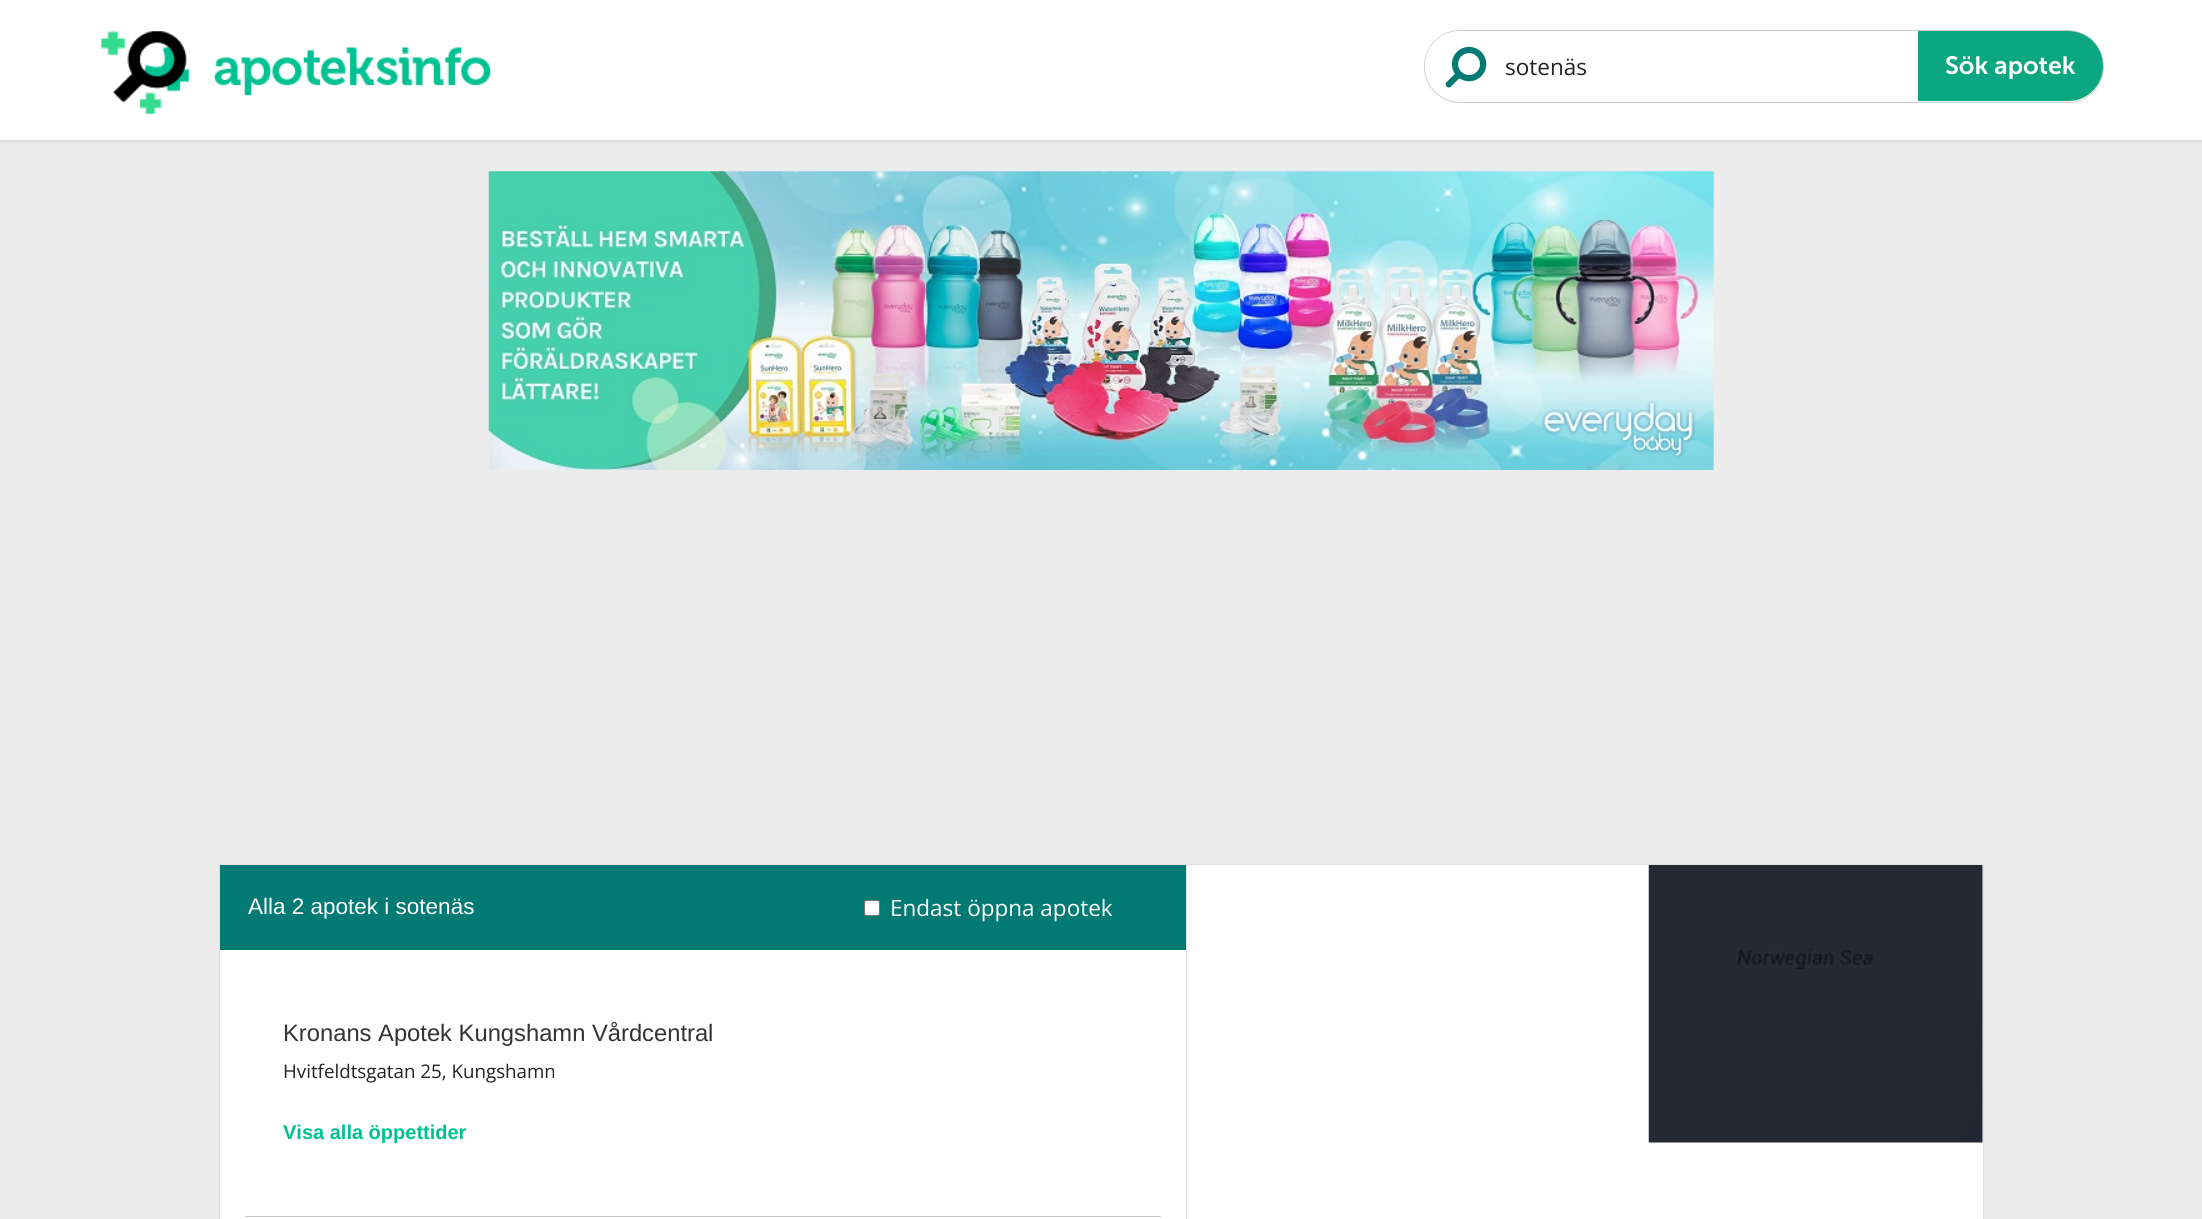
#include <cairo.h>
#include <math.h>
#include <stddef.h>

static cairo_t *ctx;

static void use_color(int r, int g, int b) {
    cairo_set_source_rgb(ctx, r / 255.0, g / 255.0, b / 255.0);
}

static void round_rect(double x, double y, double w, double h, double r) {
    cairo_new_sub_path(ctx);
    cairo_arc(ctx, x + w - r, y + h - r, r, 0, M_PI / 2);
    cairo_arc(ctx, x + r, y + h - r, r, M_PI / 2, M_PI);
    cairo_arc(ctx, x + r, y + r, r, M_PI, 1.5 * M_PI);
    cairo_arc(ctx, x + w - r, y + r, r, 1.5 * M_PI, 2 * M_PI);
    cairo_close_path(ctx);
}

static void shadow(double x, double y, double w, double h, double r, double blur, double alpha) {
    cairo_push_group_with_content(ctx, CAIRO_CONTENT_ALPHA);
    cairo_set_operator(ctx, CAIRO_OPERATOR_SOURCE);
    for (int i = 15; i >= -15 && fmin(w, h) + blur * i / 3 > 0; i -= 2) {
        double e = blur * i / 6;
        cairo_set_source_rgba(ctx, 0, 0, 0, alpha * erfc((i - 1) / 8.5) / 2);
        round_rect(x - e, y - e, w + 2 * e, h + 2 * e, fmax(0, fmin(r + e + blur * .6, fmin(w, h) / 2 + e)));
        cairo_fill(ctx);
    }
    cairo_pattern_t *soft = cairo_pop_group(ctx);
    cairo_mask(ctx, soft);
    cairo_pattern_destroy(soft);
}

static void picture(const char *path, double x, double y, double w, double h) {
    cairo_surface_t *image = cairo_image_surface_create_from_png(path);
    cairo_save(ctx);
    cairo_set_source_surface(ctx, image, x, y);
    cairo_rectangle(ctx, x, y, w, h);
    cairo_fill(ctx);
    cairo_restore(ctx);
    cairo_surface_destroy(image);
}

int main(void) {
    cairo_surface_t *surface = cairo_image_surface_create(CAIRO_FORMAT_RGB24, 2202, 1219);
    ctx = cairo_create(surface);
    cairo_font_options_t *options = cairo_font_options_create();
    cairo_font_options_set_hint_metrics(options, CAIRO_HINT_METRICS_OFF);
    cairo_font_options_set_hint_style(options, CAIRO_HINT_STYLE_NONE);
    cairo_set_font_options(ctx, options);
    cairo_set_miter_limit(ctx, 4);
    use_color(236, 236, 236);
    cairo_paint(ctx);
    use_color(221, 221, 221);
    shadow(0, 3, 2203, 140, 0, 1, 1);
    use_color(255, 255, 255);
    cairo_rectangle(ctx, 0, 0, 2202, 140);
    cairo_fill(ctx);
    picture("img1.png", 101, 31, 391, 83);
    round_rect(1424.5, 30.5, 679, 72, 36);
    use_color(204, 204, 204);
    cairo_set_line_width(ctx, 1);
    cairo_stroke(ctx);
    use_color(255, 255, 255);
    cairo_new_path(ctx);
    cairo_move_to(ctx, 1460, 31);
    cairo_line_to(ctx, 1503, 31);
    cairo_line_to(ctx, 1503, 101);
    cairo_line_to(ctx, 1460, 101);
    cairo_curve_to(ctx, 1440.5, 101, 1425, 85.5, 1425, 66);
    cairo_curve_to(ctx, 1425, 46.5, 1440.5, 31, 1460, 31);
    cairo_close_path(ctx);
    cairo_fill(ctx);
    picture("img2.png", 1445, 46, 42, 42);
    cairo_select_font_face(ctx, "Open Sans", CAIRO_FONT_SLANT_NORMAL, CAIRO_FONT_WEIGHT_NORMAL);
    cairo_set_font_size(ctx, 22.5);
    use_color(34, 34, 34);
    cairo_move_to(ctx, 1505, 75);
    cairo_show_text(ctx, "sotenäs");
    use_color(10, 167, 128);
    cairo_new_path(ctx);
    cairo_move_to(ctx, 1918, 31);
    cairo_line_to(ctx, 2068, 31);
    cairo_curve_to(ctx, 2087.5, 31, 2103, 46.5, 2103, 66);
    cairo_curve_to(ctx, 2103, 85.5, 2087.5, 101, 2068, 101);
    cairo_line_to(ctx, 1918, 101);
    cairo_close_path(ctx);
    cairo_fill(ctx);
    cairo_select_font_face(ctx, "Museo Sans SemiBold", CAIRO_FONT_SLANT_NORMAL, CAIRO_FONT_WEIGHT_NORMAL);
    cairo_set_font_size(ctx, 25);
    use_color(255, 255, 255);
    cairo_move_to(ctx, 1945, 74);
    cairo_show_text(ctx, "Sök apotek");
    picture("img3.png", 488, 171, 1226, 299);
    use_color(204, 204, 204);
    shadow(220, 865, 1763, 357, 0, 1, 1);
    use_color(255, 255, 255);
    cairo_rectangle(ctx, 220, 865, 1763, 354);
    cairo_fill(ctx);
    use_color(229, 229, 229);
    cairo_rectangle(ctx, 1186, 865, 1, 354);
    cairo_fill(ctx);
    use_color(0, 122, 115);
    cairo_rectangle(ctx, 220, 865, 966, 85);
    cairo_fill(ctx);
    cairo_select_font_face(ctx, "Liberation Sans", CAIRO_FONT_SLANT_NORMAL, CAIRO_FONT_WEIGHT_NORMAL);
    cairo_set_font_size(ctx, 22.5);
    use_color(255, 255, 255);
    cairo_move_to(ctx, 248, 914);
    cairo_show_text(ctx, "Alla 2 apotek i sotenäs");
    round_rect(864.5, 900.5, 15, 15, 2);
    cairo_fill_preserve(ctx);
    use_color(118, 118, 118);
    cairo_stroke(ctx);
    cairo_select_font_face(ctx, "Open Sans", CAIRO_FONT_SLANT_NORMAL, CAIRO_FONT_WEIGHT_NORMAL);
    use_color(255, 255, 255);
    cairo_move_to(ctx, 890, 916);
    cairo_show_text(ctx, "Endast öppna apotek");
    use_color(199, 199, 199);
    cairo_rectangle(ctx, 245, 1216, 916, 1);
    cairo_fill(ctx);
    cairo_select_font_face(ctx, "Liberation Sans", CAIRO_FONT_SLANT_NORMAL, CAIRO_FONT_WEIGHT_NORMAL);
    cairo_set_font_size(ctx, 23.75);
    use_color(51, 51, 51);
    cairo_move_to(ctx, 283, 1041);
    cairo_show_text(ctx, "Kronans Apotek Kungshamn Vårdcentral");
    cairo_select_font_face(ctx, "Open Sans", CAIRO_FONT_SLANT_NORMAL, CAIRO_FONT_WEIGHT_NORMAL);
    cairo_set_font_size(ctx, 18.75);
    use_color(34, 34, 34);
    cairo_move_to(ctx, 283, 1078);
    cairo_show_text(ctx, "Hvitfeldtsgatan 25, Kungshamn");
    cairo_select_font_face(ctx, "Liberation Sans", CAIRO_FONT_SLANT_NORMAL, CAIRO_FONT_WEIGHT_BOLD);
    cairo_set_font_size(ctx, 20);
    use_color(0, 193, 146);
    cairo_move_to(ctx, 283, 1139);
    cairo_show_text(ctx, "Visa alla öppettider");
    picture("img4.png", 1648, 865, 335, 278);
    cairo_surface_write_to_png(surface, "result.png");
    cairo_font_options_destroy(options);
    cairo_destroy(ctx);
    cairo_surface_destroy(surface);
    return 0;
}
